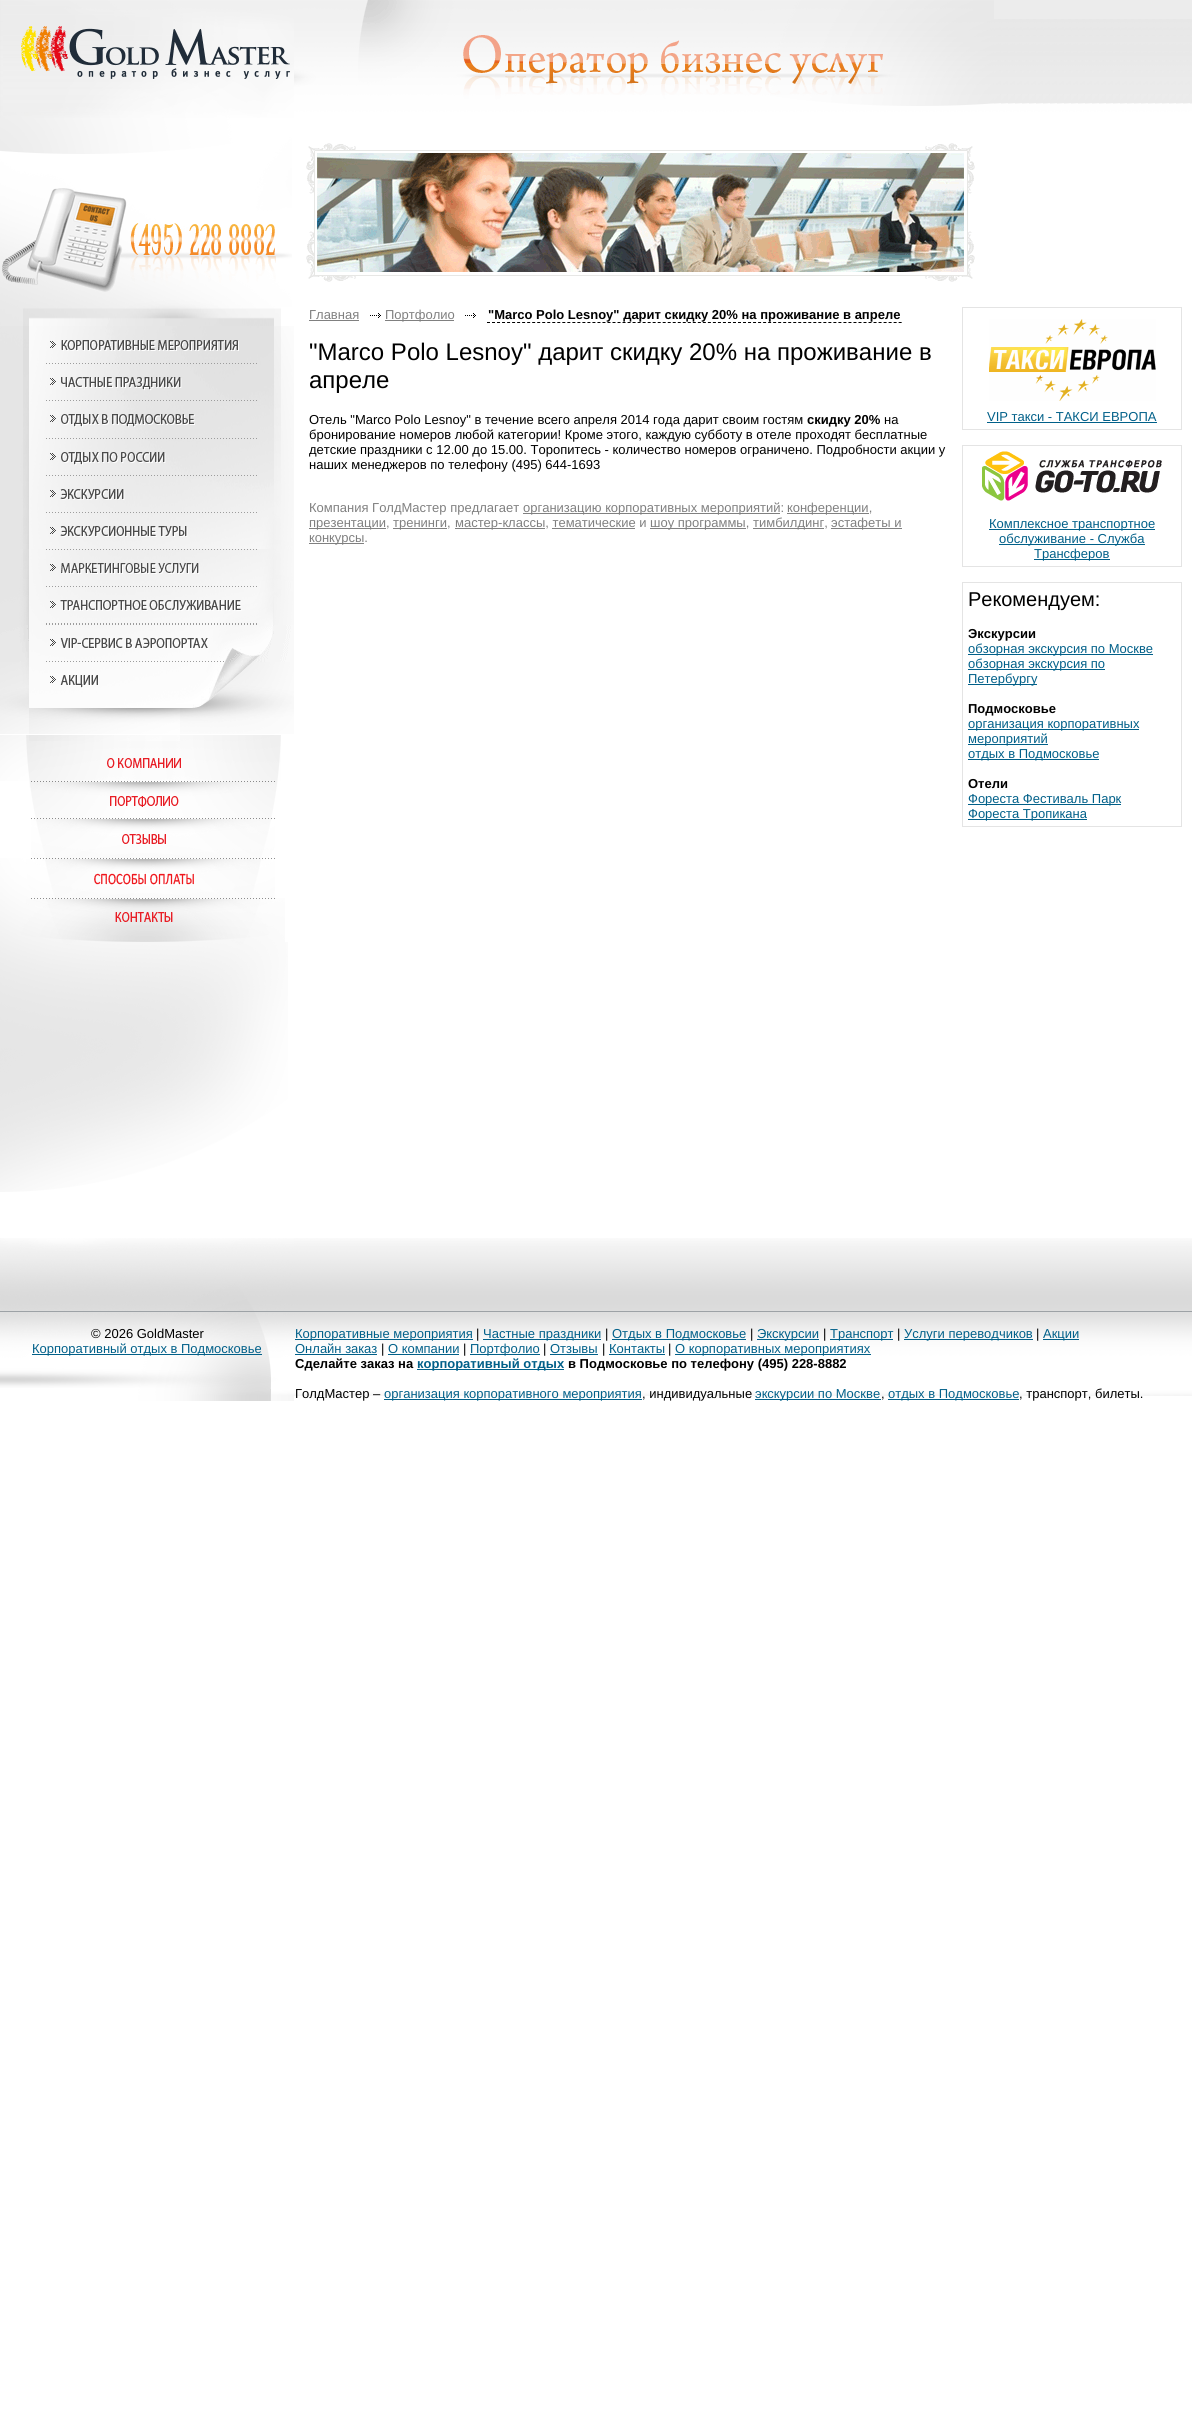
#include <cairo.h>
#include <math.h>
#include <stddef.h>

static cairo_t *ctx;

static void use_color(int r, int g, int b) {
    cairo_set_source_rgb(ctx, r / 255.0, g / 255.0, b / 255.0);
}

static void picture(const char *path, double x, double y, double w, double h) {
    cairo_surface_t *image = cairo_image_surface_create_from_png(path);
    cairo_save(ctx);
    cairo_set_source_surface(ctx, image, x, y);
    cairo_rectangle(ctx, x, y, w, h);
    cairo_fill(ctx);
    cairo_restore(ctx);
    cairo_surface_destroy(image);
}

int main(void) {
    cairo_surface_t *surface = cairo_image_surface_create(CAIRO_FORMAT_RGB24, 1192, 2434);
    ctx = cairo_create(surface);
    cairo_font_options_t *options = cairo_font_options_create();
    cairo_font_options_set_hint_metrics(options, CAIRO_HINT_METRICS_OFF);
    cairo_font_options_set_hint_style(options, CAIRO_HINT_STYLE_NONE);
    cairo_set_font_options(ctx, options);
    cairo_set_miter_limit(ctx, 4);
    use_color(255, 255, 255);
    cairo_paint(ctx);
    use_color(236, 236, 236);
    cairo_rectangle(ctx, 994, 0, 198, 19);
    cairo_fill(ctx);
    picture("img1.png", 294, 19, 898, 99);
    picture("img2.png", 0, 0, 294, 118);
    picture("img3.png", 294, 0, 700, 106);
    picture("img4.png", 0, 118, 292, 189);
    picture("img5.png", 306, 143, 669, 139);
    picture("img6.png", 0, 307, 281, 19);
    picture("img7.png", 0, 326, 294, 37);
    picture("img8.png", 0, 363, 294, 37);
    picture("img9.png", 0, 400, 294, 37);
    picture("img10.png", 0, 437, 294, 38);
    picture("img11.png", 0, 475, 294, 37);
    picture("img12.png", 0, 512, 294, 37);
    picture("img13.png", 0, 549, 294, 37);
    picture("img14.png", 0, 586, 294, 38);
    picture("img15.png", 0, 624, 294, 37);
    picture("img16.png", 0, 661, 294, 37);
    picture("img17.png", 0, 698, 294, 36);
    picture("img18.png", 0, 735, 281, 46);
    picture("img19.png", 29, 781, 249, 37);
    picture("img20.png", 31, 818, 244, 40);
    picture("img21.png", 0, 858, 275, 40);
    picture("img22.png", 0, 898, 285, 44);
    picture("img23.png", 0, 942, 288, 250);
    cairo_select_font_face(ctx, "Liberation Sans", CAIRO_FONT_SLANT_NORMAL, CAIRO_FONT_WEIGHT_NORMAL);
    cairo_set_font_size(ctx, 13);
    use_color(128, 128, 128);
    cairo_move_to(ctx, 309, 319);
    cairo_show_text(ctx, "Главная");
    cairo_rectangle(ctx, 309, 320, 50, 1);
    cairo_fill(ctx);
    picture("img24.png", 370, 313, 11, 5);
    cairo_rectangle(ctx, 385, 320, 69, 1);
    cairo_fill(ctx);
    cairo_move_to(ctx, 385, 319);
    cairo_show_text(ctx, "Портфолио");
    picture("img24.png", 465, 313, 11, 5);
    cairo_select_font_face(ctx, "Liberation Sans", CAIRO_FONT_SLANT_NORMAL, CAIRO_FONT_WEIGHT_BOLD);
    use_color(0, 0, 0);
    cairo_move_to(ctx, 488, 319);
    cairo_show_text(ctx, "\"Marco Polo Lesnoy\" дарит скидку 20% на проживание в апреле");
    cairo_new_path(ctx);
    cairo_move_to(ctx, 487, 322.5);
    cairo_line_to(ctx, 902, 322.5);
    cairo_set_line_width(ctx, 1);
    cairo_set_dash(ctx, (double[]){3, 2.02}, 2, 0);
    cairo_stroke(ctx);
    cairo_select_font_face(ctx, "Liberation Sans", CAIRO_FONT_SLANT_NORMAL, CAIRO_FONT_WEIGHT_NORMAL);
    cairo_set_font_size(ctx, 24);
    cairo_move_to(ctx, 309, 360);
    cairo_show_text(ctx, "\"Marco Polo Lesnoy\" дарит скидку 20% на проживание в");
    cairo_move_to(ctx, 309, 388);
    cairo_show_text(ctx, "апреле");
    cairo_set_font_size(ctx, 13);
    cairo_move_to(ctx, 309, 424);
    cairo_show_text(ctx, "Отель \"Marco Polo Lesnoy\" в течение всего апреля 2014 года дарит своим гостям");
    cairo_select_font_face(ctx, "Liberation Sans", CAIRO_FONT_SLANT_NORMAL, CAIRO_FONT_WEIGHT_BOLD);
    cairo_move_to(ctx, 807, 424);
    cairo_show_text(ctx, "скидку 20%");
    cairo_select_font_face(ctx, "Liberation Sans", CAIRO_FONT_SLANT_NORMAL, CAIRO_FONT_WEIGHT_NORMAL);
    cairo_move_to(ctx, 884, 424);
    cairo_show_text(ctx, "на");
    cairo_move_to(ctx, 309, 439);
    cairo_show_text(ctx, "бронирование номеров любой категории! Кроме этого, каждую субботу в отеле проходят бесплатные");
    cairo_move_to(ctx, 309, 454);
    cairo_show_text(ctx, "детские праздники с 12.00 до 15.00. Торопитесь - количество номеров ограничено. Подробности акции у");
    cairo_move_to(ctx, 309, 469);
    cairo_show_text(ctx, "наших менеджеров по телефону (495) 644-1693");
    use_color(128, 128, 128);
    cairo_move_to(ctx, 309, 512);
    cairo_show_text(ctx, "Компания ГолдМастер предлагает");
    cairo_rectangle(ctx, 523, 513, 257, 1);
    cairo_fill(ctx);
    cairo_move_to(ctx, 523, 512);
    cairo_show_text(ctx, "организацию корпоративных мероприятий:");
    cairo_rectangle(ctx, 787, 513, 82, 1);
    cairo_fill(ctx);
    cairo_move_to(ctx, 787, 512);
    cairo_show_text(ctx, "конференции,");
    cairo_rectangle(ctx, 309, 528, 77, 1);
    cairo_fill(ctx);
    cairo_move_to(ctx, 309, 527);
    cairo_show_text(ctx, "презентации,");
    cairo_rectangle(ctx, 393, 528, 54, 1);
    cairo_fill(ctx);
    cairo_move_to(ctx, 393, 527);
    cairo_show_text(ctx, "тренинги,");
    cairo_rectangle(ctx, 455, 528, 90, 1);
    cairo_fill(ctx);
    cairo_move_to(ctx, 455, 527);
    cairo_show_text(ctx, "мастер-классы, тематические и");
    cairo_rectangle(ctx, 650, 528, 96, 1);
    cairo_fill(ctx);
    cairo_move_to(ctx, 650, 527);
    cairo_show_text(ctx, "шоу программы,");
    cairo_rectangle(ctx, 753, 528, 71, 1);
    cairo_fill(ctx);
    cairo_move_to(ctx, 753, 527);
    cairo_show_text(ctx, "тимбилдинг,");
    cairo_rectangle(ctx, 831, 528, 71, 1);
    cairo_fill(ctx);
    cairo_move_to(ctx, 831, 527);
    cairo_show_text(ctx, "эстафеты и");
    cairo_rectangle(ctx, 552, 528, 83, 1);
    cairo_fill(ctx);
    cairo_rectangle(ctx, 309, 543, 55, 1);
    cairo_fill(ctx);
    cairo_move_to(ctx, 309, 542);
    cairo_show_text(ctx, "конкурсы.");
    use_color(228, 228, 228);
    cairo_rectangle(ctx, 962, 307, 220, 123);
    cairo_fill(ctx);
    use_color(255, 255, 255);
    cairo_rectangle(ctx, 963, 308, 218, 121);
    cairo_fill(ctx);
    picture("img25.png", 989, 319, 167, 82);
    use_color(1, 96, 137);
    cairo_move_to(ctx, 987, 421);
    cairo_show_text(ctx, "VIP такси - ТАКСИ ЕВРОПА");
    cairo_rectangle(ctx, 987, 422, 170, 1);
    cairo_fill(ctx);
    use_color(228, 228, 228);
    cairo_rectangle(ctx, 962, 445, 220, 122);
    cairo_fill(ctx);
    use_color(255, 255, 255);
    cairo_rectangle(ctx, 963, 446, 218, 120);
    cairo_fill(ctx);
    picture("img26.png", 982, 451, 180, 50);
    use_color(1, 96, 137);
    cairo_rectangle(ctx, 989, 529, 166, 1);
    cairo_fill(ctx);
    cairo_move_to(ctx, 989, 528);
    cairo_show_text(ctx, "Комплексное транспортное");
    cairo_rectangle(ctx, 999, 544, 146, 1);
    cairo_fill(ctx);
    cairo_move_to(ctx, 999, 543);
    cairo_show_text(ctx, "обслуживание - Служба");
    cairo_rectangle(ctx, 1034, 559, 76, 1);
    cairo_fill(ctx);
    cairo_move_to(ctx, 1034, 558);
    cairo_show_text(ctx, "Трансферов");
    use_color(228, 228, 228);
    cairo_rectangle(ctx, 962, 582, 220, 245);
    cairo_fill(ctx);
    use_color(255, 255, 255);
    cairo_rectangle(ctx, 963, 583, 218, 243);
    cairo_fill(ctx);
    cairo_set_font_size(ctx, 20);
    use_color(0, 0, 0);
    cairo_move_to(ctx, 968, 606);
    cairo_show_text(ctx, "Рекомендуем:");
    cairo_select_font_face(ctx, "Liberation Sans", CAIRO_FONT_SLANT_NORMAL, CAIRO_FONT_WEIGHT_BOLD);
    cairo_set_font_size(ctx, 13);
    cairo_move_to(ctx, 968, 638);
    cairo_show_text(ctx, "Экскурсии");
    use_color(1, 96, 137);
    cairo_rectangle(ctx, 968, 654, 185, 1);
    cairo_fill(ctx);
    cairo_select_font_face(ctx, "Liberation Sans", CAIRO_FONT_SLANT_NORMAL, CAIRO_FONT_WEIGHT_NORMAL);
    cairo_move_to(ctx, 968, 653);
    cairo_show_text(ctx, "обзорная экскурсия по Москве");
    cairo_rectangle(ctx, 968, 669, 137, 1);
    cairo_fill(ctx);
    cairo_move_to(ctx, 968, 668);
    cairo_show_text(ctx, "обзорная экскурсия по");
    cairo_rectangle(ctx, 968, 684, 69, 1);
    cairo_fill(ctx);
    cairo_move_to(ctx, 968, 683);
    cairo_show_text(ctx, "Петербургу");
    cairo_select_font_face(ctx, "Liberation Sans", CAIRO_FONT_SLANT_NORMAL, CAIRO_FONT_WEIGHT_BOLD);
    use_color(0, 0, 0);
    cairo_move_to(ctx, 968, 713);
    cairo_show_text(ctx, "Подмосковье");
    use_color(1, 96, 137);
    cairo_rectangle(ctx, 968, 729, 171, 1);
    cairo_fill(ctx);
    cairo_select_font_face(ctx, "Liberation Sans", CAIRO_FONT_SLANT_NORMAL, CAIRO_FONT_WEIGHT_NORMAL);
    cairo_move_to(ctx, 968, 728);
    cairo_show_text(ctx, "организация корпоративных");
    cairo_rectangle(ctx, 968, 744, 80, 1);
    cairo_fill(ctx);
    cairo_move_to(ctx, 968, 743);
    cairo_show_text(ctx, "мероприятий");
    cairo_rectangle(ctx, 968, 759, 131, 1);
    cairo_fill(ctx);
    cairo_move_to(ctx, 968, 758);
    cairo_show_text(ctx, "отдых в Подмосковье");
    cairo_select_font_face(ctx, "Liberation Sans", CAIRO_FONT_SLANT_NORMAL, CAIRO_FONT_WEIGHT_BOLD);
    use_color(0, 0, 0);
    cairo_move_to(ctx, 968, 788);
    cairo_show_text(ctx, "Отели");
    use_color(1, 96, 137);
    cairo_rectangle(ctx, 968, 804, 153, 1);
    cairo_fill(ctx);
    cairo_select_font_face(ctx, "Liberation Sans", CAIRO_FONT_SLANT_NORMAL, CAIRO_FONT_WEIGHT_NORMAL);
    cairo_move_to(ctx, 968, 803);
    cairo_show_text(ctx, "Фореста Фестиваль Парк");
    cairo_rectangle(ctx, 968, 819, 119, 1);
    cairo_fill(ctx);
    cairo_move_to(ctx, 968, 818);
    cairo_show_text(ctx, "Фореста Тропикана");
    picture("img27.png", 294, 1238, 898, 158);
    picture("img28.png", 0, 1238, 294, 163);
    use_color(0, 0, 0);
    cairo_move_to(ctx, 91, 1338);
    cairo_show_text(ctx, "© 2026 GoldMaster");
    use_color(1, 96, 137);
    cairo_rectangle(ctx, 32, 1354, 230, 1);
    cairo_fill(ctx);
    cairo_move_to(ctx, 32, 1353);
    cairo_show_text(ctx, "Корпоративный отдых в Подмосковье");
    cairo_rectangle(ctx, 295, 1339, 178, 1);
    cairo_fill(ctx);
    cairo_move_to(ctx, 295, 1338);
    cairo_show_text(ctx, "Корпоративные мероприятия");
    use_color(0, 0, 0);
    cairo_move_to(ctx, 476, 1338);
    cairo_show_text(ctx, "|");
    use_color(1, 96, 137);
    cairo_rectangle(ctx, 483, 1339, 118, 1);
    cairo_fill(ctx);
    cairo_move_to(ctx, 483, 1338);
    cairo_show_text(ctx, "Частные праздники");
    use_color(0, 0, 0);
    cairo_move_to(ctx, 605, 1338);
    cairo_show_text(ctx, "|");
    use_color(1, 96, 137);
    cairo_rectangle(ctx, 612, 1339, 134, 1);
    cairo_fill(ctx);
    cairo_move_to(ctx, 612, 1338);
    cairo_show_text(ctx, "Отдых в Подмосковье");
    use_color(0, 0, 0);
    cairo_move_to(ctx, 750, 1338);
    cairo_show_text(ctx, "|");
    use_color(1, 96, 137);
    cairo_rectangle(ctx, 757, 1339, 62, 1);
    cairo_fill(ctx);
    cairo_move_to(ctx, 757, 1338);
    cairo_show_text(ctx, "Экскурсии");
    use_color(0, 0, 0);
    cairo_move_to(ctx, 823, 1338);
    cairo_show_text(ctx, "|");
    use_color(1, 96, 137);
    cairo_rectangle(ctx, 830, 1339, 63, 1);
    cairo_fill(ctx);
    cairo_move_to(ctx, 830, 1338);
    cairo_show_text(ctx, "Транспорт");
    use_color(0, 0, 0);
    cairo_move_to(ctx, 897, 1338);
    cairo_show_text(ctx, "|");
    use_color(1, 96, 137);
    cairo_rectangle(ctx, 904, 1339, 129, 1);
    cairo_fill(ctx);
    cairo_move_to(ctx, 904, 1338);
    cairo_show_text(ctx, "Услуги переводчиков");
    use_color(0, 0, 0);
    cairo_move_to(ctx, 1036, 1338);
    cairo_show_text(ctx, "|");
    use_color(1, 96, 137);
    cairo_rectangle(ctx, 1043, 1339, 36, 1);
    cairo_fill(ctx);
    cairo_move_to(ctx, 1043, 1338);
    cairo_show_text(ctx, "Акции");
    cairo_move_to(ctx, 295, 1353);
    cairo_show_text(ctx, "Онлайн заказ");
    cairo_rectangle(ctx, 295, 1354, 82, 1);
    cairo_fill(ctx);
    use_color(0, 0, 0);
    cairo_move_to(ctx, 381, 1353);
    cairo_show_text(ctx, "|");
    use_color(1, 96, 137);
    cairo_move_to(ctx, 388, 1353);
    cairo_show_text(ctx, "О компании");
    cairo_rectangle(ctx, 388, 1354, 71, 1);
    cairo_fill(ctx);
    use_color(0, 0, 0);
    cairo_move_to(ctx, 463, 1353);
    cairo_show_text(ctx, "|");
    use_color(1, 96, 137);
    cairo_rectangle(ctx, 470, 1354, 70, 1);
    cairo_fill(ctx);
    cairo_move_to(ctx, 470, 1353);
    cairo_show_text(ctx, "Портфолио");
    use_color(0, 0, 0);
    cairo_move_to(ctx, 543, 1353);
    cairo_show_text(ctx, "|");
    use_color(1, 96, 137);
    cairo_move_to(ctx, 550, 1353);
    cairo_show_text(ctx, "Отзывы");
    cairo_rectangle(ctx, 550, 1354, 48, 1);
    cairo_fill(ctx);
    use_color(0, 0, 0);
    cairo_move_to(ctx, 602, 1353);
    cairo_show_text(ctx, "|");
    use_color(1, 96, 137);
    cairo_move_to(ctx, 609, 1353);
    cairo_show_text(ctx, "Контакты");
    cairo_rectangle(ctx, 609, 1354, 56, 1);
    cairo_fill(ctx);
    use_color(0, 0, 0);
    cairo_move_to(ctx, 668, 1353);
    cairo_show_text(ctx, "|");
    use_color(1, 96, 137);
    cairo_rectangle(ctx, 675, 1354, 196, 1);
    cairo_fill(ctx);
    cairo_move_to(ctx, 675, 1353);
    cairo_show_text(ctx, "О корпоративных мероприятиях");
    cairo_select_font_face(ctx, "Liberation Sans", CAIRO_FONT_SLANT_NORMAL, CAIRO_FONT_WEIGHT_BOLD);
    use_color(0, 0, 0);
    cairo_move_to(ctx, 295, 1368);
    cairo_show_text(ctx, "Сделайте заказ на");
    use_color(1, 96, 137);
    cairo_rectangle(ctx, 417, 1369, 147, 1);
    cairo_fill(ctx);
    cairo_move_to(ctx, 417, 1368);
    cairo_show_text(ctx, "корпоративный отдых");
    use_color(0, 0, 0);
    cairo_move_to(ctx, 568, 1368);
    cairo_show_text(ctx, "в Подмосковье по телефону (495) 228-8882");
    cairo_select_font_face(ctx, "Liberation Sans", CAIRO_FONT_SLANT_NORMAL, CAIRO_FONT_WEIGHT_NORMAL);
    cairo_move_to(ctx, 295, 1398);
    cairo_show_text(ctx, "ГолдМастер –");
    use_color(1, 96, 137);
    cairo_rectangle(ctx, 384, 1399, 258, 1);
    cairo_fill(ctx);
    cairo_move_to(ctx, 384, 1398);
    cairo_show_text(ctx, "организация корпоративного мероприятия");
    use_color(0, 0, 0);
    cairo_move_to(ctx, 642, 1398);
    cairo_show_text(ctx, ", индивидуальные");
    use_color(1, 96, 137);
    cairo_rectangle(ctx, 755, 1399, 126, 1);
    cairo_fill(ctx);
    cairo_move_to(ctx, 755, 1398);
    cairo_show_text(ctx, "экскурсии по Москве");
    use_color(0, 0, 0);
    cairo_move_to(ctx, 881, 1398);
    cairo_show_text(ctx, ",");
    use_color(1, 96, 137);
    cairo_rectangle(ctx, 888, 1399, 131, 1);
    cairo_fill(ctx);
    cairo_move_to(ctx, 888, 1398);
    cairo_show_text(ctx, "отдых в Подмосковье");
    use_color(0, 0, 0);
    cairo_move_to(ctx, 1019, 1398);
    cairo_show_text(ctx, ", транспорт, билеты.");
    cairo_surface_write_to_png(surface, "result.png");
    cairo_font_options_destroy(options);
    cairo_destroy(ctx);
    cairo_surface_destroy(surface);
    return 0;
}
